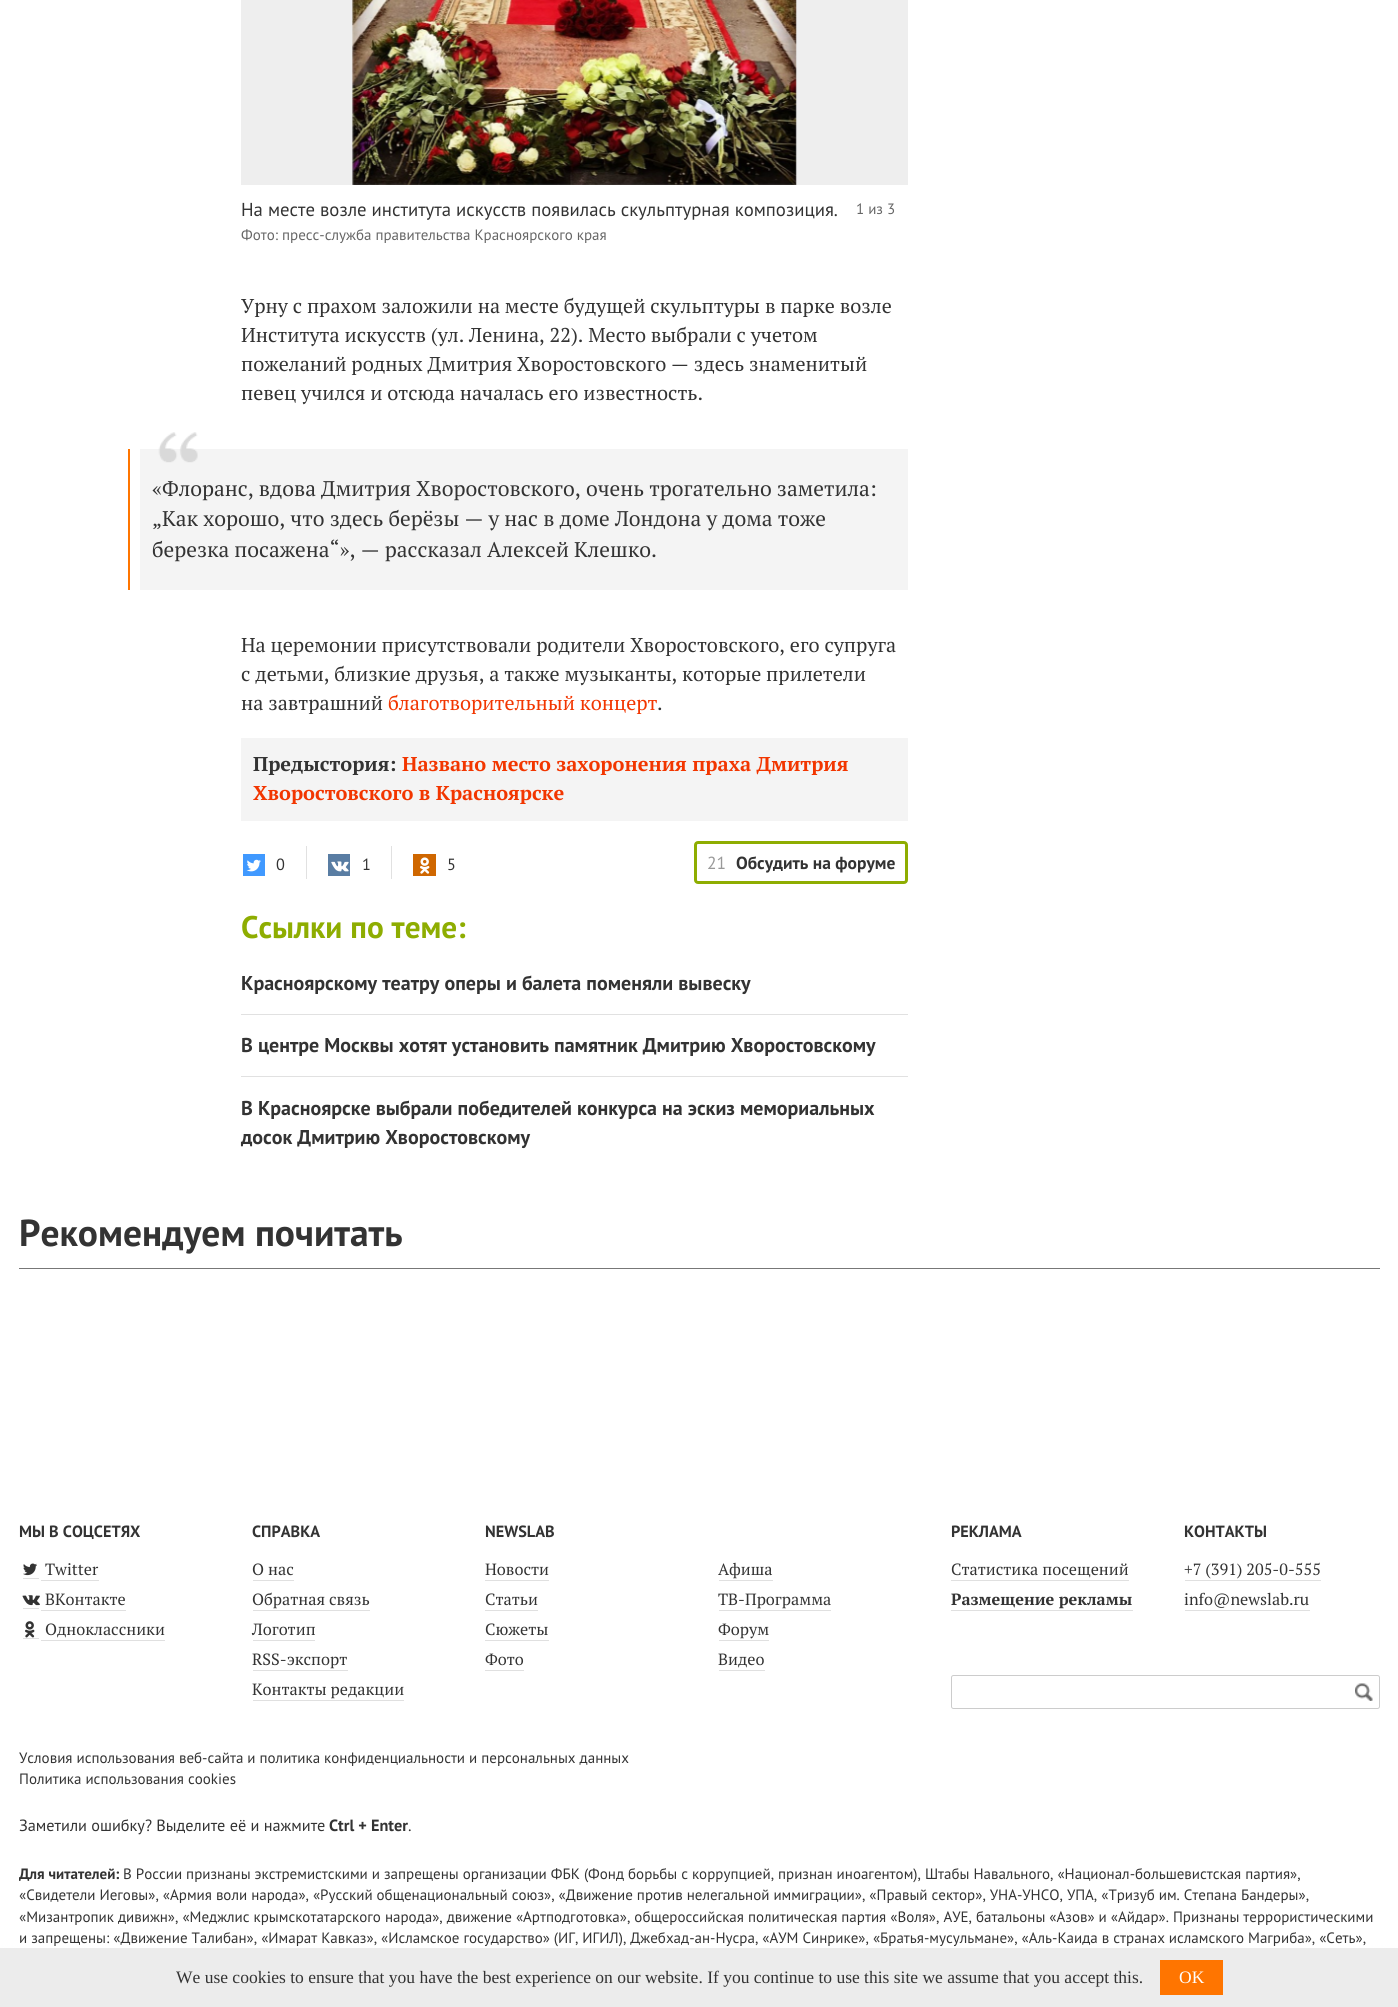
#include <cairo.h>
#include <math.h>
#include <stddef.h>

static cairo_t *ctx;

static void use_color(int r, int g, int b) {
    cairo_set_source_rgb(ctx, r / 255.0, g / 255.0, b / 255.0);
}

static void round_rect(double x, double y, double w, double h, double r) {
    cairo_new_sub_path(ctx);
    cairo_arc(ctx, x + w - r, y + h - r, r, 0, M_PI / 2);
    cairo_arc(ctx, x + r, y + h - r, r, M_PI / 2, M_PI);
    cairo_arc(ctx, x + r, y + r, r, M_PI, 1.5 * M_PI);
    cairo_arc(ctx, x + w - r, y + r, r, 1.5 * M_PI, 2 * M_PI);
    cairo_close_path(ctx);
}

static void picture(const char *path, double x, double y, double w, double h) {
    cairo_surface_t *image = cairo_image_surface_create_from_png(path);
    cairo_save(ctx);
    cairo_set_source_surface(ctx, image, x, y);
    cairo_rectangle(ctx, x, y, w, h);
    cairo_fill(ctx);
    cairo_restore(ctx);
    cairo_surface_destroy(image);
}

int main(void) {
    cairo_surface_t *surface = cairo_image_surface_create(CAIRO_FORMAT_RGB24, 1398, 2007);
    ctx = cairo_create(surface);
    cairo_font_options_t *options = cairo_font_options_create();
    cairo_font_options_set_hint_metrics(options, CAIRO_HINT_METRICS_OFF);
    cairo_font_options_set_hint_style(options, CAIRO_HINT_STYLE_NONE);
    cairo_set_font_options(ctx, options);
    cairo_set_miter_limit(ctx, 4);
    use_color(255, 255, 255);
    cairo_paint(ctx);
    use_color(238, 238, 238);
    cairo_rectangle(ctx, 241, 0, 667, 185);
    cairo_fill(ctx);
    picture("img1.png", 352, 0, 445, 185);
    cairo_select_font_face(ctx, "PT Sans", CAIRO_FONT_SLANT_NORMAL, CAIRO_FONT_WEIGHT_NORMAL);
    cairo_set_font_size(ctx, 18.75);
    use_color(51, 51, 51);
    cairo_move_to(ctx, 241, 216);
    cairo_show_text(ctx, "На месте возле института искусств появилась скульптурная композиция.");
    cairo_set_font_size(ctx, 15);
    use_color(102, 102, 102);
    cairo_move_to(ctx, 241, 240);
    cairo_show_text(ctx, "Фото: пресс-служба правительства Красноярского края");
    cairo_move_to(ctx, 856, 214);
    cairo_show_text(ctx, "1 из 3");
    cairo_select_font_face(ctx, "PT Serif", CAIRO_FONT_SLANT_NORMAL, CAIRO_FONT_WEIGHT_NORMAL);
    cairo_set_font_size(ctx, 20);
    use_color(51, 51, 51);
    cairo_move_to(ctx, 241, 313);
    cairo_show_text(ctx, "Урну с прахом заложили на месте будущей скульптуры в парке возле");
    cairo_move_to(ctx, 241, 342);
    cairo_show_text(ctx, "Института искусств (ул. Ленина, 22). Место выбрали с учетом");
    cairo_move_to(ctx, 241, 371);
    cairo_show_text(ctx, "пожеланий родных Дмитрия Хворостовского — здесь знаменитый");
    cairo_move_to(ctx, 241, 400);
    cairo_show_text(ctx, "певец учился и отсюда началась его известность.");
    use_color(255, 117, 0);
    cairo_rectangle(ctx, 128, 449, 2, 141);
    cairo_fill(ctx);
    use_color(244, 244, 244);
    cairo_rectangle(ctx, 140, 449, 768, 141);
    cairo_fill(ctx);
    picture("img2.png", 158, 432, 40, 31);
    cairo_set_font_size(ctx, 21.25);
    use_color(51, 51, 51);
    cairo_move_to(ctx, 152, 496);
    cairo_show_text(ctx, "«Флоранс, вдова Дмитрия Хворостовского, очень трогательно заметила:");
    cairo_move_to(ctx, 152, 526);
    cairo_show_text(ctx, "„Как хорошо, что здесь берёзы — у нас в доме Лондона у дома тоже");
    cairo_move_to(ctx, 152, 557);
    cairo_show_text(ctx, "березка посажена“», — рассказал Алексей Клешко.");
    cairo_set_font_size(ctx, 20);
    cairo_move_to(ctx, 241, 652);
    cairo_show_text(ctx, "На церемонии присутствовали родители Хворостовского, его супруга");
    cairo_move_to(ctx, 241, 681);
    cairo_show_text(ctx, "с детьми, близкие друзья, а также музыканты, которые прилетели");
    cairo_move_to(ctx, 241, 710);
    cairo_show_text(ctx, "на завтрашний");
    use_color(242, 54, 0);
    cairo_move_to(ctx, 388, 710);
    cairo_show_text(ctx, "благотворительный концерт");
    use_color(51, 51, 51);
    cairo_move_to(ctx, 657, 710);
    cairo_show_text(ctx, ".");
    use_color(244, 244, 244);
    cairo_rectangle(ctx, 241, 738, 667, 83);
    cairo_fill(ctx);
    cairo_select_font_face(ctx, "PT Serif", CAIRO_FONT_SLANT_NORMAL, CAIRO_FONT_WEIGHT_BOLD);
    use_color(51, 51, 51);
    cairo_move_to(ctx, 253, 771);
    cairo_show_text(ctx, "Предыстория:");
    use_color(242, 54, 0);
    cairo_move_to(ctx, 402, 771);
    cairo_show_text(ctx, "Названо место захоронения праха Дмитрия");
    cairo_move_to(ctx, 253, 800);
    cairo_show_text(ctx, "Хворостовского в Красноярске");
    use_color(64, 153, 255);
    cairo_rectangle(ctx, 243, 854, 22, 22);
    cairo_fill(ctx);
    picture("img3.png", 246, 859, 15, 13);
    cairo_select_font_face(ctx, "PT Sans", CAIRO_FONT_SLANT_NORMAL, CAIRO_FONT_WEIGHT_NORMAL);
    cairo_set_font_size(ctx, 16.25);
    use_color(51, 51, 51);
    cairo_move_to(ctx, 276, 870);
    cairo_show_text(ctx, "0");
    use_color(225, 225, 225);
    cairo_rectangle(ctx, 306, 846, 1, 33);
    cairo_fill(ctx);
    use_color(89, 125, 163);
    cairo_rectangle(ctx, 328, 854, 22, 22);
    cairo_fill(ctx);
    picture("img4.png", 331, 861, 18, 11);
    use_color(51, 51, 51);
    cairo_move_to(ctx, 362, 870);
    cairo_show_text(ctx, "1");
    use_color(225, 225, 225);
    cairo_rectangle(ctx, 391, 846, 1, 33);
    cairo_fill(ctx);
    use_color(207, 103, 0);
    cairo_rectangle(ctx, 413, 854, 23, 22);
    cairo_fill(ctx);
    picture("img5.png", 420, 857, 10, 17);
    use_color(51, 51, 51);
    cairo_move_to(ctx, 447, 870);
    cairo_show_text(ctx, "5");
    round_rect(695.5, 842.5, 211, 40, 2.5);
    use_color(142, 173, 1);
    cairo_set_line_width(ctx, 3);
    cairo_stroke(ctx);
    cairo_set_font_size(ctx, 17.5);
    use_color(153, 153, 153);
    cairo_move_to(ctx, 707, 869);
    cairo_show_text(ctx, "21");
    cairo_select_font_face(ctx, "PT Sans", CAIRO_FONT_SLANT_NORMAL, CAIRO_FONT_WEIGHT_BOLD);
    use_color(51, 51, 51);
    cairo_move_to(ctx, 736, 869);
    cairo_show_text(ctx, "Обсудить на форуме");
    cairo_set_font_size(ctx, 31.25);
    use_color(142, 173, 1);
    cairo_move_to(ctx, 241, 938);
    cairo_show_text(ctx, "Ссылки по теме:");
    use_color(225, 225, 225);
    cairo_rectangle(ctx, 241, 1014, 667, 1);
    cairo_fill(ctx);
    cairo_set_font_size(ctx, 20);
    use_color(51, 51, 51);
    cairo_move_to(ctx, 241, 990);
    cairo_show_text(ctx, "Красноярскому театру оперы и балета поменяли вывеску");
    use_color(225, 225, 225);
    cairo_rectangle(ctx, 241, 1076, 667, 1);
    cairo_fill(ctx);
    use_color(51, 51, 51);
    cairo_move_to(ctx, 241, 1052);
    cairo_show_text(ctx, "В центре Москвы хотят установить памятник Дмитрию Хворостовскому");
    cairo_move_to(ctx, 241, 1115);
    cairo_show_text(ctx, "В Красноярске выбрали победителей конкурса на эскиз мемориальных");
    cairo_move_to(ctx, 241, 1144);
    cairo_show_text(ctx, "досок Дмитрию Хворостовскому");
    cairo_set_font_size(ctx, 37.5);
    cairo_move_to(ctx, 19, 1246);
    cairo_show_text(ctx, "Рекомендуем почитать");
    use_color(119, 119, 119);
    cairo_rectangle(ctx, 19, 1268, 1361, 1);
    cairo_fill(ctx);
    cairo_set_font_size(ctx, 16.25);
    use_color(51, 51, 51);
    cairo_move_to(ctx, 19, 1537);
    cairo_show_text(ctx, "МЫ В СОЦСЕТЯХ");
    use_color(224, 224, 224);
    cairo_rectangle(ctx, 23, 1578, 16, 1);
    cairo_fill(ctx);
    cairo_rectangle(ctx, 41, 1580, 58, 1);
    cairo_fill(ctx);
    picture("img6.png", 23, 1563, 14, 13);
    cairo_select_font_face(ctx, "PT Serif", CAIRO_FONT_SLANT_NORMAL, CAIRO_FONT_WEIGHT_NORMAL);
    use_color(51, 51, 51);
    cairo_move_to(ctx, 45, 1575);
    cairo_show_text(ctx, "Twitter");
    use_color(224, 224, 224);
    cairo_rectangle(ctx, 23, 1608, 16, 1);
    cairo_fill(ctx);
    cairo_rectangle(ctx, 41, 1610, 85, 1);
    cairo_fill(ctx);
    picture("img7.png", 22, 1595, 18, 11);
    use_color(51, 51, 51);
    cairo_move_to(ctx, 45, 1605);
    cairo_show_text(ctx, "ВКонтакте");
    use_color(224, 224, 224);
    cairo_rectangle(ctx, 23, 1638, 16, 1);
    cairo_fill(ctx);
    cairo_rectangle(ctx, 41, 1640, 124, 1);
    cairo_fill(ctx);
    picture("img8.png", 25, 1621, 10, 17);
    use_color(51, 51, 51);
    cairo_move_to(ctx, 45, 1635);
    cairo_show_text(ctx, "Одноклассники");
    cairo_select_font_face(ctx, "PT Sans", CAIRO_FONT_SLANT_NORMAL, CAIRO_FONT_WEIGHT_BOLD);
    cairo_move_to(ctx, 252, 1537);
    cairo_show_text(ctx, "СПРАВКА");
    cairo_select_font_face(ctx, "PT Serif", CAIRO_FONT_SLANT_NORMAL, CAIRO_FONT_WEIGHT_NORMAL);
    cairo_move_to(ctx, 252, 1575);
    cairo_show_text(ctx, "О нас");
    use_color(224, 224, 224);
    cairo_rectangle(ctx, 253, 1580, 41, 1);
    cairo_fill(ctx);
    use_color(51, 51, 51);
    cairo_move_to(ctx, 252, 1605);
    cairo_show_text(ctx, "Обратная связь");
    use_color(224, 224, 224);
    cairo_rectangle(ctx, 253, 1610, 117, 1);
    cairo_fill(ctx);
    use_color(51, 51, 51);
    cairo_move_to(ctx, 252, 1635);
    cairo_show_text(ctx, "Логотип");
    use_color(224, 224, 224);
    cairo_rectangle(ctx, 253, 1640, 62, 1);
    cairo_fill(ctx);
    use_color(51, 51, 51);
    cairo_move_to(ctx, 252, 1665);
    cairo_show_text(ctx, "RSS-экспорт");
    use_color(224, 224, 224);
    cairo_rectangle(ctx, 253, 1670, 95, 1);
    cairo_fill(ctx);
    use_color(51, 51, 51);
    cairo_move_to(ctx, 252, 1695);
    cairo_show_text(ctx, "Контакты редакции");
    use_color(224, 224, 224);
    cairo_rectangle(ctx, 253, 1700, 151, 1);
    cairo_fill(ctx);
    cairo_select_font_face(ctx, "PT Sans", CAIRO_FONT_SLANT_NORMAL, CAIRO_FONT_WEIGHT_BOLD);
    use_color(51, 51, 51);
    cairo_move_to(ctx, 485, 1537);
    cairo_show_text(ctx, "NEWSLAB");
    cairo_select_font_face(ctx, "PT Serif", CAIRO_FONT_SLANT_NORMAL, CAIRO_FONT_WEIGHT_NORMAL);
    cairo_move_to(ctx, 485, 1575);
    cairo_show_text(ctx, "Новости");
    use_color(224, 224, 224);
    cairo_rectangle(ctx, 485, 1580, 64, 1);
    cairo_fill(ctx);
    use_color(51, 51, 51);
    cairo_move_to(ctx, 485, 1605);
    cairo_show_text(ctx, "Статьи");
    use_color(224, 224, 224);
    cairo_rectangle(ctx, 485, 1610, 53, 1);
    cairo_fill(ctx);
    use_color(51, 51, 51);
    cairo_move_to(ctx, 485, 1635);
    cairo_show_text(ctx, "Сюжеты");
    use_color(224, 224, 224);
    cairo_rectangle(ctx, 485, 1640, 64, 1);
    cairo_fill(ctx);
    use_color(51, 51, 51);
    cairo_move_to(ctx, 485, 1665);
    cairo_show_text(ctx, "Фото");
    use_color(224, 224, 224);
    cairo_rectangle(ctx, 485, 1670, 39, 1);
    cairo_fill(ctx);
    use_color(51, 51, 51);
    cairo_move_to(ctx, 718, 1575);
    cairo_show_text(ctx, "Афиша");
    use_color(224, 224, 224);
    cairo_rectangle(ctx, 719, 1580, 54, 1);
    cairo_fill(ctx);
    use_color(51, 51, 51);
    cairo_move_to(ctx, 718, 1605);
    cairo_show_text(ctx, "ТВ-Программа");
    use_color(224, 224, 224);
    cairo_rectangle(ctx, 719, 1610, 112, 1);
    cairo_fill(ctx);
    use_color(51, 51, 51);
    cairo_move_to(ctx, 718, 1635);
    cairo_show_text(ctx, "Форум");
    use_color(224, 224, 224);
    cairo_rectangle(ctx, 719, 1640, 50, 1);
    cairo_fill(ctx);
    use_color(51, 51, 51);
    cairo_move_to(ctx, 718, 1665);
    cairo_show_text(ctx, "Видео");
    use_color(224, 224, 224);
    cairo_rectangle(ctx, 719, 1670, 46, 1);
    cairo_fill(ctx);
    cairo_select_font_face(ctx, "PT Sans", CAIRO_FONT_SLANT_NORMAL, CAIRO_FONT_WEIGHT_BOLD);
    use_color(51, 51, 51);
    cairo_move_to(ctx, 951, 1537);
    cairo_show_text(ctx, "РЕКЛАМА");
    cairo_select_font_face(ctx, "PT Serif", CAIRO_FONT_SLANT_NORMAL, CAIRO_FONT_WEIGHT_NORMAL);
    cairo_move_to(ctx, 951, 1575);
    cairo_show_text(ctx, "Статистика посещений");
    use_color(224, 224, 224);
    cairo_rectangle(ctx, 951, 1580, 178, 1);
    cairo_fill(ctx);
    cairo_select_font_face(ctx, "PT Serif", CAIRO_FONT_SLANT_NORMAL, CAIRO_FONT_WEIGHT_BOLD);
    use_color(51, 51, 51);
    cairo_move_to(ctx, 951, 1605);
    cairo_show_text(ctx, "Размещение рекламы");
    use_color(224, 224, 224);
    cairo_rectangle(ctx, 951, 1610, 182, 1);
    cairo_fill(ctx);
    cairo_select_font_face(ctx, "PT Sans", CAIRO_FONT_SLANT_NORMAL, CAIRO_FONT_WEIGHT_BOLD);
    use_color(51, 51, 51);
    cairo_move_to(ctx, 1184, 1537);
    cairo_show_text(ctx, "КОНТАКТЫ");
    cairo_select_font_face(ctx, "PT Serif", CAIRO_FONT_SLANT_NORMAL, CAIRO_FONT_WEIGHT_NORMAL);
    cairo_move_to(ctx, 1184, 1575);
    cairo_show_text(ctx, "+7 (391) 205-0-555");
    use_color(224, 224, 224);
    cairo_rectangle(ctx, 1185, 1580, 136, 1);
    cairo_fill(ctx);
    use_color(51, 51, 51);
    cairo_move_to(ctx, 1184, 1605);
    cairo_show_text(ctx, "info@newslab.ru");
    use_color(224, 224, 224);
    cairo_rectangle(ctx, 1185, 1610, 125, 1);
    cairo_fill(ctx);
    round_rect(951.5, 1675.5, 428, 33, 2);
    use_color(204, 204, 204);
    cairo_set_line_width(ctx, 1);
    cairo_stroke(ctx);
    picture("img9.png", 1355, 1683, 18, 18);
    cairo_select_font_face(ctx, "PT Sans", CAIRO_FONT_SLANT_NORMAL, CAIRO_FONT_WEIGHT_NORMAL);
    cairo_set_font_size(ctx, 15);
    use_color(51, 51, 51);
    cairo_move_to(ctx, 19, 1763);
    cairo_show_text(ctx, "Условия использования веб-сайта и политика конфиденциальности и персональных данных");
    cairo_move_to(ctx, 19, 1784);
    cairo_show_text(ctx, "Политика использования cookies");
    cairo_set_font_size(ctx, 16.25);
    cairo_move_to(ctx, 19, 1831);
    cairo_show_text(ctx, "Заметили ошибку? Выделите её и нажмите");
    cairo_select_font_face(ctx, "PT Sans", CAIRO_FONT_SLANT_NORMAL, CAIRO_FONT_WEIGHT_BOLD);
    cairo_move_to(ctx, 329, 1831);
    cairo_show_text(ctx, "Ctrl + Enter");
    cairo_select_font_face(ctx, "PT Sans", CAIRO_FONT_SLANT_NORMAL, CAIRO_FONT_WEIGHT_NORMAL);
    cairo_move_to(ctx, 408, 1831);
    cairo_show_text(ctx, ".");
    cairo_select_font_face(ctx, "PT Sans", CAIRO_FONT_SLANT_NORMAL, CAIRO_FONT_WEIGHT_BOLD);
    cairo_set_font_size(ctx, 15);
    cairo_move_to(ctx, 19, 1879);
    cairo_show_text(ctx, "Для читателей:");
    cairo_select_font_face(ctx, "PT Sans", CAIRO_FONT_SLANT_NORMAL, CAIRO_FONT_WEIGHT_NORMAL);
    cairo_move_to(ctx, 123, 1879);
    cairo_show_text(ctx, "В России признаны экстремистскими и запрещены организации ФБК (Фонд борьбы с коррупцией, признан иноагентом), Штабы Навального, «Национал-большевистская партия»,");
    cairo_move_to(ctx, 19, 1900);
    cairo_show_text(ctx, "«Свидетели Иеговы», «Армия воли народа», «Русский общенациональный союз», «Движение против нелегальной иммиграции», «Правый сектор», УНА-УНСО, УПА, «Тризуб им. Степана Бандеры»,");
    cairo_move_to(ctx, 19, 1922);
    cairo_show_text(ctx, "«Мизантропик дивижн», «Меджлис крымскотатарского народа», движение «Артподготовка», общероссийская политическая партия «Воля», АУЕ, батальоны «Азов» и «Айдар». Признаны террористическими");
    cairo_move_to(ctx, 19, 1943);
    cairo_show_text(ctx, "и запрещены: «Движение Талибан», «Имарат Кавказ», «Исламское государство» (ИГ, ИГИЛ), Джебхад-ан-Нусра, «АУМ Синрике», «Братья-мусульмане», «Аль-Каида в странах исламского Магриба», «Сеть»,");
    use_color(236, 236, 236);
    cairo_rectangle(ctx, 0, 1948, 1398, 59);
    cairo_fill(ctx);
    cairo_select_font_face(ctx, "Liberation Serif", CAIRO_FONT_SLANT_NORMAL, CAIRO_FONT_WEIGHT_NORMAL);
    cairo_set_font_size(ctx, 17.5);
    use_color(51, 51, 51);
    cairo_move_to(ctx, 176, 1983);
    cairo_show_text(ctx, "We use cookies to ensure that you have the best experience on our website. If you continue to use this site we assume that you accept this.");
    use_color(255, 117, 0);
    cairo_rectangle(ctx, 1160, 1960, 63, 35);
    cairo_fill(ctx);
    use_color(255, 255, 255);
    cairo_move_to(ctx, 1179, 1983);
    cairo_show_text(ctx, "OK");
    cairo_surface_write_to_png(surface, "result.png");
    cairo_font_options_destroy(options);
    cairo_destroy(ctx);
    cairo_surface_destroy(surface);
    return 0;
}
